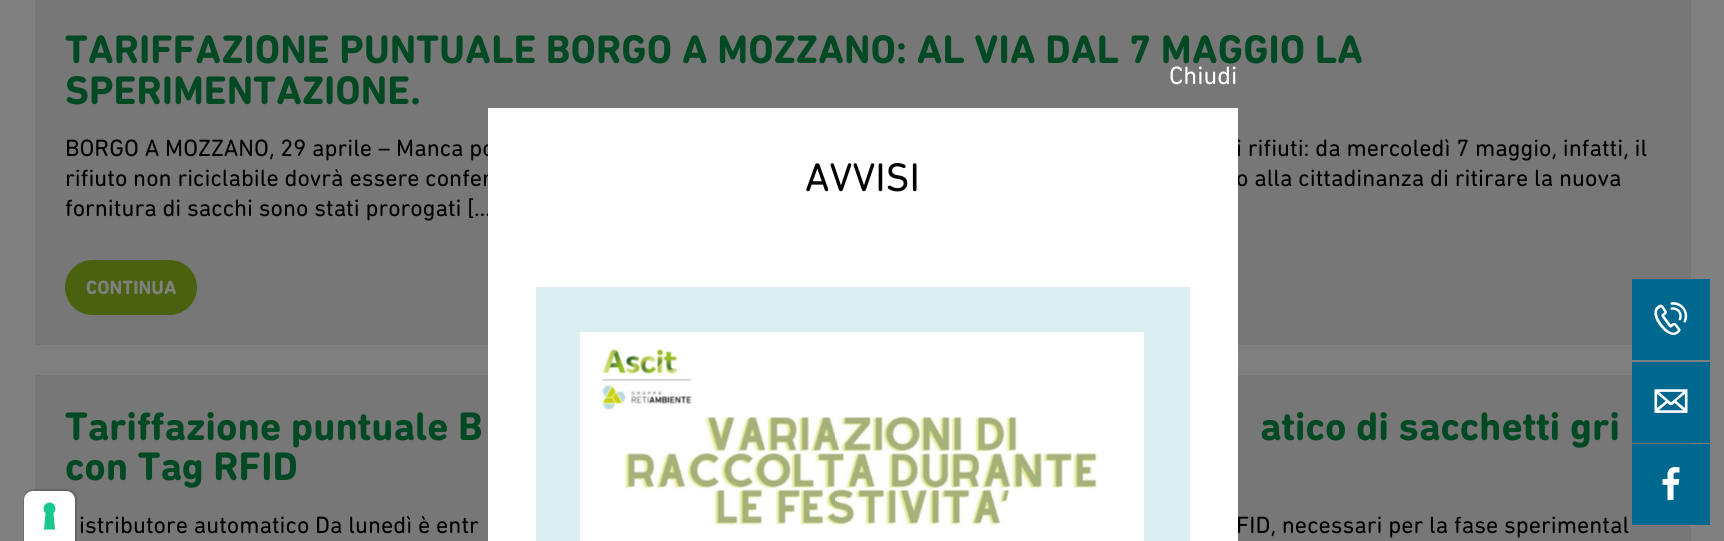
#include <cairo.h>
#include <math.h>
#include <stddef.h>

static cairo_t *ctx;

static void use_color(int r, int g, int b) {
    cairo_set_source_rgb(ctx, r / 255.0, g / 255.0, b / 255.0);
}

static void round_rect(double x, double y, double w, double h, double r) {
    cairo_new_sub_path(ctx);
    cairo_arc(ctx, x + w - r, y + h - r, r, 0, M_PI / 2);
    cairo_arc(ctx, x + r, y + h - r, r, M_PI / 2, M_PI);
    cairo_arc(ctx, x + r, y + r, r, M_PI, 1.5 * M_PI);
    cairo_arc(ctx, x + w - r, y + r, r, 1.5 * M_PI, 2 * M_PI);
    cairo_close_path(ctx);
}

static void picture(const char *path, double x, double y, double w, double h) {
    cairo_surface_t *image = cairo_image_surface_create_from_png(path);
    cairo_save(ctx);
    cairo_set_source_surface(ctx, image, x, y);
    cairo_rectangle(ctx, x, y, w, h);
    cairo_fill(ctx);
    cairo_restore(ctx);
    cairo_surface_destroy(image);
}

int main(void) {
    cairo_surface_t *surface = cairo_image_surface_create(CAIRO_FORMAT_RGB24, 1724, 541);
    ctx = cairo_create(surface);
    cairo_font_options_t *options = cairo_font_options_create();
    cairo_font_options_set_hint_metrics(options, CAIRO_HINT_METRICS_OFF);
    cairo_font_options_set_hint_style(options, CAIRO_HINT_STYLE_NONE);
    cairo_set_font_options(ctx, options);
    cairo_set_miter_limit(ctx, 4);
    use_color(128, 128, 128);
    cairo_paint(ctx);
    use_color(119, 119, 119);
    cairo_rectangle(ctx, 35, 0, 1656, 345);
    cairo_fill(ctx);
    cairo_select_font_face(ctx, "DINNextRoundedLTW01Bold", CAIRO_FONT_SLANT_NORMAL, CAIRO_FONT_WEIGHT_BOLD);
    cairo_set_font_size(ctx, 40.5);
    use_color(0, 73, 35);
    cairo_move_to(ctx, 65, 63);
    cairo_show_text(ctx, "TARIFFAZIONE PUNTUALE BORGO A MOZZANO: AL VIA DAL 7 MAGGIO LA");
    cairo_move_to(ctx, 65, 104);
    cairo_show_text(ctx, "SPERIMENTAZIONE.");
    cairo_select_font_face(ctx, "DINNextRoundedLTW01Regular", CAIRO_FONT_SLANT_NORMAL, CAIRO_FONT_WEIGHT_NORMAL);
    cairo_set_font_size(ctx, 24);
    use_color(0, 0, 0);
    cairo_move_to(ctx, 65, 156);
    cairo_show_text(ctx, "BORGO A MOZZANO, 29 aprile – Manca po");
    cairo_move_to(ctx, 1236, 156);
    cairo_show_text(ctx, "i rifiuti: da mercoledì 7 maggio, infatti, il");
    cairo_move_to(ctx, 65, 186);
    cairo_show_text(ctx, "rifiuto non riciclabile dovrà essere confer");
    cairo_move_to(ctx, 1236, 186);
    cairo_show_text(ctx, "o alla cittadinanza di ritirare la nuova");
    cairo_move_to(ctx, 65, 216);
    cairo_show_text(ctx, "fornitura di sacchi sono stati prorogati […");
    use_color(74, 97, 16);
    round_rect(65, 260, 132, 55, 27.5);
    cairo_fill(ctx);
    cairo_select_font_face(ctx, "DINNextRoundedLTW01Bold", CAIRO_FONT_SLANT_NORMAL, CAIRO_FONT_WEIGHT_BOLD);
    cairo_set_font_size(ctx, 19.5);
    use_color(128, 128, 128);
    cairo_move_to(ctx, 86, 294);
    cairo_show_text(ctx, "CONTINUA");
    use_color(119, 119, 119);
    cairo_rectangle(ctx, 35, 375, 1656, 166);
    cairo_fill(ctx);
    cairo_set_font_size(ctx, 40.5);
    use_color(0, 73, 35);
    cairo_move_to(ctx, 65, 440);
    cairo_show_text(ctx, "Tariffazione puntuale B");
    cairo_move_to(ctx, 1260, 440);
    cairo_show_text(ctx, "atico di sacchetti gri");
    cairo_move_to(ctx, 65, 480);
    cairo_show_text(ctx, "con Tag RFID");
    cairo_select_font_face(ctx, "DINNextRoundedLTW01Regular", CAIRO_FONT_SLANT_NORMAL, CAIRO_FONT_WEIGHT_NORMAL);
    cairo_set_font_size(ctx, 24);
    use_color(0, 0, 0);
    cairo_move_to(ctx, 79, 533);
    cairo_show_text(ctx, "istributore automatico Da lunedì è entr");
    cairo_move_to(ctx, 1236, 533);
    cairo_show_text(ctx, "FID, necessari per la fase sperimental");
    use_color(0, 103, 142);
    cairo_rectangle(ctx, 1632, 279, 78, 81);
    cairo_fill(ctx);
    picture("img1.png", 1654, 302, 34, 33);
    cairo_rectangle(ctx, 1632, 362, 78, 81);
    cairo_fill(ctx);
    picture("img2.png", 1654, 389, 34, 24);
    cairo_rectangle(ctx, 1632, 444, 78, 81);
    cairo_fill(ctx);
    picture("img3.png", 1662, 467, 18, 34);
    use_color(255, 255, 255);
    cairo_rectangle(ctx, 488, 108, 750, 433);
    cairo_fill(ctx);
    cairo_set_font_size(ctx, 25.5);
    cairo_move_to(ctx, 1169, 84);
    cairo_show_text(ctx, "Chiudi");
    cairo_set_font_size(ctx, 40.5);
    use_color(0, 0, 0);
    cairo_move_to(ctx, 805, 191);
    cairo_show_text(ctx, "AVVISI");
    use_color(219, 238, 240);
    cairo_rectangle(ctx, 536, 287, 654, 254);
    cairo_fill(ctx);
    picture("img4.png", 580, 332, 564, 209);
    cairo_new_path(ctx);
    cairo_move_to(ctx, 34, 490);
    cairo_line_to(ctx, 66, 490);
    cairo_curve_to(ctx, 71.5, 490, 76, 494.5, 76, 500);
    cairo_line_to(ctx, 76, 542);
    cairo_line_to(ctx, 24, 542);
    cairo_line_to(ctx, 24, 500);
    cairo_curve_to(ctx, 24, 494.5, 28.5, 490, 34, 490);
    cairo_close_path(ctx);
    cairo_set_source_rgba(ctx, 0, 0, 0, 0.15);
    cairo_stroke(ctx);
    use_color(255, 255, 255);
    cairo_new_path(ctx);
    cairo_move_to(ctx, 33, 491);
    cairo_line_to(ctx, 66, 491);
    cairo_curve_to(ctx, 71, 491, 75, 495, 75, 500);
    cairo_line_to(ctx, 75, 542);
    cairo_line_to(ctx, 24, 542);
    cairo_line_to(ctx, 24, 500);
    cairo_curve_to(ctx, 24, 495, 28, 491, 33, 491);
    cairo_close_path(ctx);
    cairo_fill(ctx);
    use_color(28, 198, 145);
    cairo_set_fill_rule(ctx, CAIRO_FILL_RULE_EVEN_ODD);
    cairo_new_path(ctx);
    cairo_move_to(ctx, 49.5, 502.5);
    cairo_curve_to(ctx, 55, 502.5, 57.5, 509.5, 53.5, 513);
    cairo_line_to(ctx, 55, 529.5);
    cairo_line_to(ctx, 44, 529.5);
    cairo_line_to(ctx, 45.5, 513);
    cairo_curve_to(ctx, 41.5, 509.5, 44, 502.5, 49.5, 502.5);
    cairo_close_path(ctx);
    cairo_fill(ctx);
    cairo_surface_write_to_png(surface, "result.png");
    cairo_font_options_destroy(options);
    cairo_destroy(ctx);
    cairo_surface_destroy(surface);
    return 0;
}
